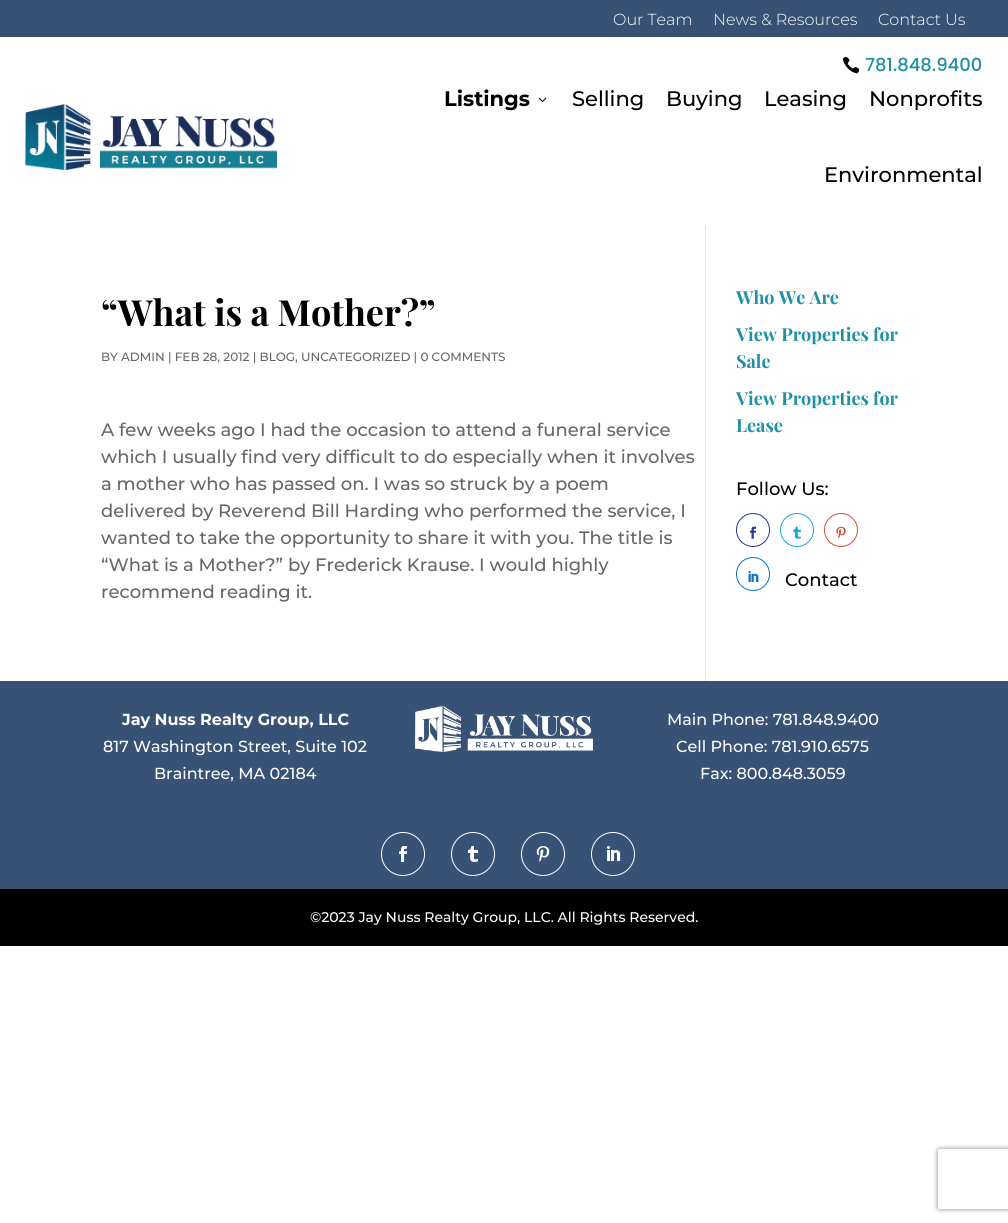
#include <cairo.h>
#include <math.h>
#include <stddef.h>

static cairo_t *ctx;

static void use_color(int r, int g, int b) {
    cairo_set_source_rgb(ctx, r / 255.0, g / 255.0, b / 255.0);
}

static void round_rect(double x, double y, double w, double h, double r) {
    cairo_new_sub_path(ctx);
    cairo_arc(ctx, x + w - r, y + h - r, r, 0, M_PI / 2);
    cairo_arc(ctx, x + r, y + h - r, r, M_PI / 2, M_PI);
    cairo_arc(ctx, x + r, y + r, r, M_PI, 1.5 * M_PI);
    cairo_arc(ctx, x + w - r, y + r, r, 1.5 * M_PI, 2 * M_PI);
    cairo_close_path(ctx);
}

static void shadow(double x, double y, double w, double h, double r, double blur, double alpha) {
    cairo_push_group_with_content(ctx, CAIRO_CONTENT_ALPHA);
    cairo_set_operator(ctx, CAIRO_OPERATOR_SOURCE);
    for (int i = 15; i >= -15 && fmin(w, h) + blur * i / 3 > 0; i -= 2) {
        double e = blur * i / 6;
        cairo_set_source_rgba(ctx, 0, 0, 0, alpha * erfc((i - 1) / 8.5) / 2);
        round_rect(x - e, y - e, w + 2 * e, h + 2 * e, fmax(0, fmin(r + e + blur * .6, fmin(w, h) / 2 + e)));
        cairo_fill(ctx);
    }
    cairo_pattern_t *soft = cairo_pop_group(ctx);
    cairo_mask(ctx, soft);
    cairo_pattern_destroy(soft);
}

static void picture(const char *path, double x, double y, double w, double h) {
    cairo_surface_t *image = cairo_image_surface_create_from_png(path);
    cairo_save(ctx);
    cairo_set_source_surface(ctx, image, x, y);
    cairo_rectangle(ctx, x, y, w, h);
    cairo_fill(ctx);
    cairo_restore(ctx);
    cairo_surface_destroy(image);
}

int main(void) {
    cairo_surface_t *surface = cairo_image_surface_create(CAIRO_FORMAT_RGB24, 1008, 1223);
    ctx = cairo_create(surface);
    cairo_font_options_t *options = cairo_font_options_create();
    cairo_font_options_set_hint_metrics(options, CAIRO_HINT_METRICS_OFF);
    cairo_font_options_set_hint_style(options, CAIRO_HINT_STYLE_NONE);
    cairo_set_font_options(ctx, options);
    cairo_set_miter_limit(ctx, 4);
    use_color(255, 255, 255);
    cairo_paint(ctx);
    use_color(55, 82, 116);
    cairo_rectangle(ctx, 0, 0, 1008, 37);
    cairo_fill(ctx);
    cairo_select_font_face(ctx, "Montserrat Light", CAIRO_FONT_SLANT_NORMAL, CAIRO_FONT_WEIGHT_NORMAL);
    cairo_set_font_size(ctx, 16);
    use_color(255, 255, 255);
    cairo_move_to(ctx, 613, 25);
    cairo_show_text(ctx, "Our Team");
    cairo_move_to(ctx, 713, 25);
    cairo_show_text(ctx, "News & Resources");
    cairo_move_to(ctx, 878, 25);
    cairo_show_text(ctx, "Contact Us");
    picture("img1.png", 842, 56, 18, 18);
    cairo_select_font_face(ctx, "Poppins Medium", CAIRO_FONT_SLANT_NORMAL, CAIRO_FONT_WEIGHT_NORMAL);
    cairo_set_font_size(ctx, 18);
    use_color(29, 145, 163);
    cairo_move_to(ctx, 865, 71);
    cairo_show_text(ctx, "781.848.9400");
    picture("img2.png", 25, 104, 252, 66);
    cairo_select_font_face(ctx, "Montserrat", CAIRO_FONT_SLANT_NORMAL, CAIRO_FONT_WEIGHT_BOLD);
    cairo_set_font_size(ctx, 21);
    use_color(0, 0, 0);
    cairo_move_to(ctx, 444, 106);
    cairo_show_text(ctx, "Listings");
    picture("img3.png", 538, 97, 9, 5);
    cairo_select_font_face(ctx, "Montserrat Medium", CAIRO_FONT_SLANT_NORMAL, CAIRO_FONT_WEIGHT_NORMAL);
    cairo_move_to(ctx, 572, 106);
    cairo_show_text(ctx, "Selling");
    cairo_move_to(ctx, 666, 106);
    cairo_show_text(ctx, "Buying");
    cairo_move_to(ctx, 764, 106);
    cairo_show_text(ctx, "Leasing");
    cairo_move_to(ctx, 869, 106);
    cairo_show_text(ctx, "Nonprofits");
    cairo_move_to(ctx, 824, 182);
    cairo_show_text(ctx, "Environmental");
    use_color(226, 226, 226);
    cairo_rectangle(ctx, 705, 226, 1, 455);
    cairo_fill(ctx);
    cairo_select_font_face(ctx, "Playfair Display", CAIRO_FONT_SLANT_NORMAL, CAIRO_FONT_WEIGHT_BOLD);
    cairo_set_font_size(ctx, 36);
    use_color(0, 0, 0);
    cairo_move_to(ctx, 101, 326);
    cairo_show_text(ctx, "“What is a Mother?”");
    cairo_select_font_face(ctx, "Montserrat Medium", CAIRO_FONT_SLANT_NORMAL, CAIRO_FONT_WEIGHT_NORMAL);
    cairo_set_font_size(ctx, 12);
    use_color(102, 102, 102);
    cairo_move_to(ctx, 101, 361);
    cairo_show_text(ctx, "BY ADMIN | FEB 28, 2012 | BLOG, UNCATEGORIZED | 0 COMMENTS");
    cairo_set_font_size(ctx, 18);
    cairo_move_to(ctx, 101, 436);
    cairo_show_text(ctx, "A few weeks ago I had the occasion to attend a funeral service");
    cairo_move_to(ctx, 101, 463);
    cairo_show_text(ctx, "which I usually find very difficult to do especially when it involves");
    cairo_move_to(ctx, 101, 490);
    cairo_show_text(ctx, "a mother who has passed on. I was so struck by a poem");
    cairo_move_to(ctx, 101, 517);
    cairo_show_text(ctx, "delivered by Reverend Bill Harding who performed the service, I");
    cairo_move_to(ctx, 101, 544);
    cairo_show_text(ctx, "wanted to take the opportunity to share it with you. The title is");
    cairo_move_to(ctx, 101, 571);
    cairo_show_text(ctx, "“What is a Mother?” by Frederick Krause. I would highly");
    cairo_move_to(ctx, 101, 598);
    cairo_show_text(ctx, "recommend reading it.");
    cairo_select_font_face(ctx, "Playfair Display", CAIRO_FONT_SLANT_NORMAL, CAIRO_FONT_WEIGHT_BOLD);
    use_color(29, 145, 163);
    cairo_move_to(ctx, 736, 304);
    cairo_show_text(ctx, "Who We Are");
    cairo_move_to(ctx, 736, 341);
    cairo_show_text(ctx, "View Properties for");
    cairo_move_to(ctx, 736, 368);
    cairo_show_text(ctx, "Sale");
    cairo_move_to(ctx, 736, 405);
    cairo_show_text(ctx, "View Properties for");
    cairo_move_to(ctx, 736, 432);
    cairo_show_text(ctx, "Lease");
    cairo_select_font_face(ctx, "Montserrat Medium", CAIRO_FONT_SLANT_NORMAL, CAIRO_FONT_WEIGHT_NORMAL);
    use_color(0, 0, 0);
    cairo_move_to(ctx, 736, 495);
    cairo_show_text(ctx, "Follow Us:");
    cairo_new_path(ctx);
    cairo_arc(ctx, 753, 530, 16.5, 0, 2 * M_PI);
    use_color(42, 53, 146);
    cairo_set_line_width(ctx, 1);
    cairo_stroke(ctx);
    picture("img4.png", 750, 526, 6, 13);
    cairo_arc(ctx, 797, 530, 16.5, 0, 2 * M_PI);
    use_color(22, 168, 226);
    cairo_stroke(ctx);
    picture("img5.png", 793, 526, 8, 13);
    cairo_arc(ctx, 841, 530, 16.5, 0, 2 * M_PI);
    use_color(219, 74, 57);
    cairo_stroke(ctx);
    picture("img6.png", 836, 526, 10, 13);
    cairo_arc(ctx, 753, 574, 16.5, 0, 2 * M_PI);
    use_color(17, 114, 190);
    cairo_stroke(ctx);
    picture("img7.png", 748, 570, 11, 12);
    use_color(0, 0, 0);
    cairo_move_to(ctx, 785, 586);
    cairo_show_text(ctx, "Contact");
    use_color(55, 82, 116);
    cairo_rectangle(ctx, 0, 681, 1008, 208);
    cairo_fill(ctx);
    cairo_select_font_face(ctx, "Montserrat", CAIRO_FONT_SLANT_NORMAL, CAIRO_FONT_WEIGHT_BOLD);
    cairo_set_font_size(ctx, 16);
    use_color(255, 255, 255);
    cairo_move_to(ctx, 122, 725);
    cairo_show_text(ctx, "Jay Nuss Realty Group, LLC");
    cairo_select_font_face(ctx, "Montserrat Medium", CAIRO_FONT_SLANT_NORMAL, CAIRO_FONT_WEIGHT_NORMAL);
    cairo_move_to(ctx, 103, 752);
    cairo_show_text(ctx, "817 Washington Street, Suite 102");
    cairo_move_to(ctx, 154, 779);
    cairo_show_text(ctx, "Braintree, MA 02184");
    picture("img8.png", 415, 706, 178, 46);
    cairo_move_to(ctx, 667, 725);
    cairo_show_text(ctx, "Main Phone: 781.848.9400");
    cairo_move_to(ctx, 676, 752);
    cairo_show_text(ctx, "Cell Phone: 781.910.6575");
    cairo_move_to(ctx, 700, 779);
    cairo_show_text(ctx, "Fax: 800.848.3059");
    cairo_new_path(ctx);
    cairo_arc(ctx, 403, 854, 21.5, 0, 2 * M_PI);
    cairo_stroke(ctx);
    picture("img9.png", 399, 846, 8, 16);
    cairo_arc(ctx, 473, 854, 21.5, 0, 2 * M_PI);
    cairo_stroke(ctx);
    picture("img10.png", 468, 846, 10, 16);
    cairo_arc(ctx, 543, 854, 21.5, 0, 2 * M_PI);
    cairo_stroke(ctx);
    picture("img11.png", 536, 846, 14, 16);
    cairo_arc(ctx, 613, 854, 21.5, 0, 2 * M_PI);
    cairo_stroke(ctx);
    picture("img12.png", 607, 846, 14, 15);
    use_color(0, 0, 0);
    cairo_rectangle(ctx, 0, 889, 1008, 57);
    cairo_fill(ctx);
    cairo_set_font_size(ctx, 14);
    use_color(255, 255, 255);
    cairo_move_to(ctx, 310, 922);
    cairo_show_text(ctx, "©2023 Jay Nuss Realty Group, LLC. All Rights Reserved.");
    cairo_save(ctx);
    cairo_set_fill_rule(ctx, CAIRO_FILL_RULE_EVEN_ODD);
    cairo_new_path(ctx);
    cairo_move_to(ctx, 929, 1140);
    cairo_line_to(ctx, 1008, 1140);
    cairo_line_to(ctx, 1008, 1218);
    cairo_line_to(ctx, 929, 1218);
    cairo_close_path(ctx);
    cairo_move_to(ctx, 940, 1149);
    cairo_line_to(ctx, 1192, 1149);
    cairo_curve_to(ctx, 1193, 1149, 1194, 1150, 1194, 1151);
    cairo_line_to(ctx, 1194, 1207);
    cairo_curve_to(ctx, 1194, 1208, 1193, 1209, 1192, 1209);
    cairo_line_to(ctx, 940, 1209);
    cairo_curve_to(ctx, 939, 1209, 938, 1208, 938, 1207);
    cairo_line_to(ctx, 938, 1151);
    cairo_curve_to(ctx, 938, 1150, 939, 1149, 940, 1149);
    cairo_close_path(ctx);
    cairo_clip(ctx);
    use_color(128, 128, 128);
    shadow(938, 1149, 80, 60, 2, 2.5, 1);
    cairo_restore(ctx);
    cairo_surface_write_to_png(surface, "result.png");
    cairo_font_options_destroy(options);
    cairo_destroy(ctx);
    cairo_surface_destroy(surface);
    return 0;
}
